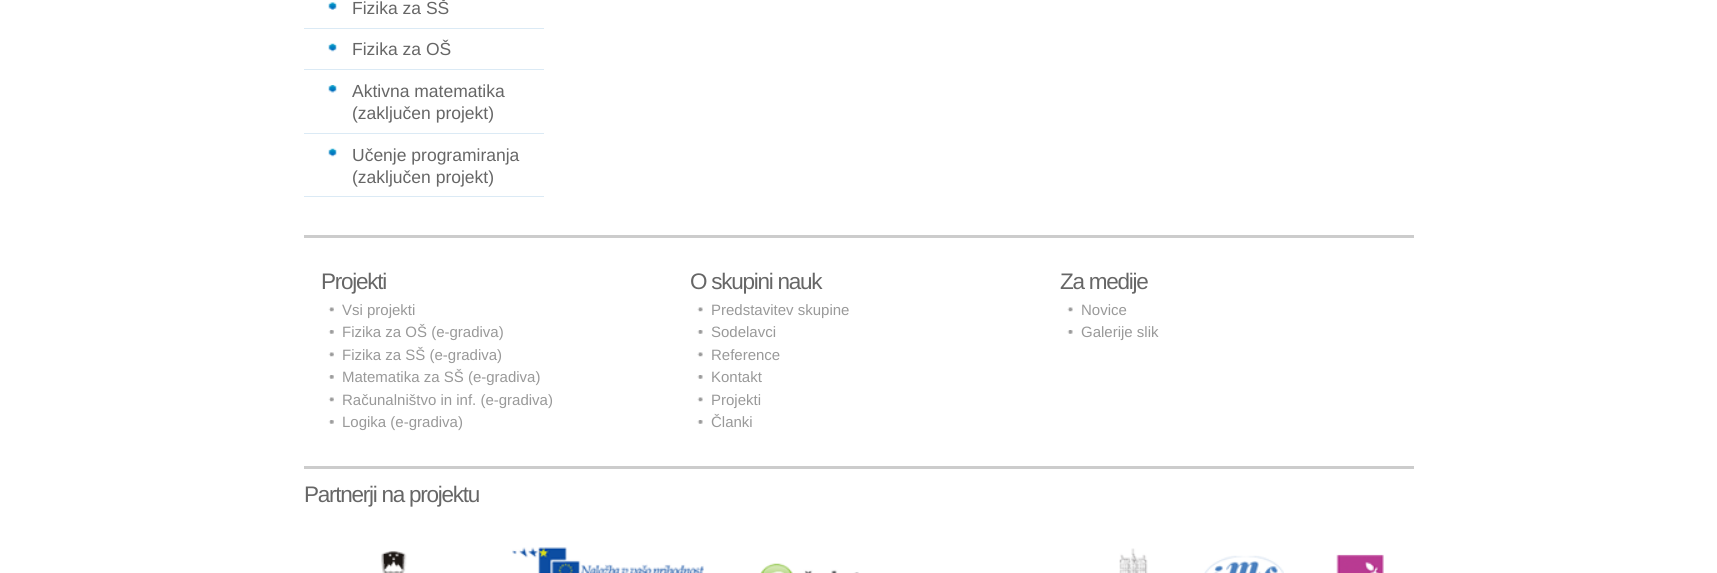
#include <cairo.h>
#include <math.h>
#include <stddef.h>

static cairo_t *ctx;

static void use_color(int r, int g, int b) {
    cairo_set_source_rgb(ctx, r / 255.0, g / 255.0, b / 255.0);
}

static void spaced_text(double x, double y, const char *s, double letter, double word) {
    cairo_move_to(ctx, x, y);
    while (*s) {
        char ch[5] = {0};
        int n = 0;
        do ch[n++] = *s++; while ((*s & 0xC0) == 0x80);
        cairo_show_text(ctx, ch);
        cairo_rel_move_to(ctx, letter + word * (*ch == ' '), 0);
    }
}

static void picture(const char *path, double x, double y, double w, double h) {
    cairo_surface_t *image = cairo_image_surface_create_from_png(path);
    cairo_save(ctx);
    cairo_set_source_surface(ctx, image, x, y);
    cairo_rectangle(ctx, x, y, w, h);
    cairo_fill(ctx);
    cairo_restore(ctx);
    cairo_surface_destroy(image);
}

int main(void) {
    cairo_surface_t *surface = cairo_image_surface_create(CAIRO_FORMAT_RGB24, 1717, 573);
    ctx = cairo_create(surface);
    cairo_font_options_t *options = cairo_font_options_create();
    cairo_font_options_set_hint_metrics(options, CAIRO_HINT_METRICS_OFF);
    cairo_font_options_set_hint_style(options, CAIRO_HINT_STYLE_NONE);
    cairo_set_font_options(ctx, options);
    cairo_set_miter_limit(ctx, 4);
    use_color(255, 255, 255);
    cairo_paint(ctx);
    picture("img1.png", 328, 2, 9, 8);
    use_color(219, 234, 245);
    cairo_rectangle(ctx, 304, 28, 240, 1);
    cairo_fill(ctx);
    cairo_select_font_face(ctx, "Liberation Sans", CAIRO_FONT_SLANT_NORMAL, CAIRO_FONT_WEIGHT_NORMAL);
    cairo_set_font_size(ctx, 17.5);
    use_color(102, 102, 102);
    cairo_move_to(ctx, 352, 14);
    cairo_show_text(ctx, "Fizika za SŠ");
    picture("img2.png", 328, 43, 9, 9);
    use_color(219, 234, 245);
    cairo_rectangle(ctx, 304, 69, 240, 1);
    cairo_fill(ctx);
    use_color(102, 102, 102);
    cairo_move_to(ctx, 352, 55);
    cairo_show_text(ctx, "Fizika za OŠ");
    picture("img3.png", 328, 85, 9, 8);
    use_color(219, 234, 245);
    cairo_rectangle(ctx, 304, 133, 240, 1);
    cairo_fill(ctx);
    use_color(102, 102, 102);
    cairo_move_to(ctx, 352, 97);
    cairo_show_text(ctx, "Aktivna matematika");
    cairo_move_to(ctx, 352, 119);
    cairo_show_text(ctx, "(zaključen projekt)");
    picture("img2.png", 328, 148, 9, 9);
    use_color(219, 234, 245);
    cairo_rectangle(ctx, 304, 196, 240, 1);
    cairo_fill(ctx);
    use_color(102, 102, 102);
    cairo_move_to(ctx, 352, 161);
    cairo_show_text(ctx, "Učenje programiranja");
    cairo_move_to(ctx, 352, 183);
    cairo_show_text(ctx, "(zaključen projekt)");
    use_color(204, 204, 204);
    cairo_rectangle(ctx, 304, 235, 1110, 3);
    cairo_fill(ctx);
    cairo_rectangle(ctx, 304, 466, 1110, 3);
    cairo_fill(ctx);
    cairo_set_font_size(ctx, 22.5);
    use_color(102, 102, 102);
    spaced_text(321, 289, "Projekti", -1.25, 0);
    picture("img4.png", 328, 307, 6, 5);
    cairo_set_font_size(ctx, 15);
    use_color(153, 153, 153);
    cairo_move_to(ctx, 342, 315);
    cairo_show_text(ctx, "Vsi projekti");
    picture("img5.png", 328, 330, 6, 4);
    cairo_move_to(ctx, 342, 337);
    cairo_show_text(ctx, "Fizika za OŠ (e-gradiva)");
    picture("img4.png", 328, 352, 6, 5);
    cairo_move_to(ctx, 342, 360);
    cairo_show_text(ctx, "Fizika za SŠ (e-gradiva)");
    picture("img5.png", 328, 375, 6, 4);
    cairo_move_to(ctx, 342, 382);
    cairo_show_text(ctx, "Matematika za SŠ (e-gradiva)");
    picture("img4.png", 328, 397, 6, 5);
    cairo_move_to(ctx, 342, 405);
    cairo_show_text(ctx, "Računalništvo in inf. (e-gradiva)");
    picture("img5.png", 328, 420, 6, 4);
    cairo_move_to(ctx, 342, 427);
    cairo_show_text(ctx, "Logika (e-gradiva)");
    cairo_set_font_size(ctx, 22.5);
    use_color(102, 102, 102);
    spaced_text(690, 289, "O skupini nauk", -1.25, 0);
    picture("img6.png", 697, 307, 6, 5);
    cairo_set_font_size(ctx, 15);
    use_color(153, 153, 153);
    cairo_move_to(ctx, 711, 315);
    cairo_show_text(ctx, "Predstavitev skupine");
    picture("img7.png", 697, 330, 6, 4);
    cairo_move_to(ctx, 711, 337);
    cairo_show_text(ctx, "Sodelavci");
    picture("img6.png", 697, 352, 6, 5);
    cairo_move_to(ctx, 711, 360);
    cairo_show_text(ctx, "Reference");
    picture("img7.png", 697, 375, 6, 4);
    cairo_move_to(ctx, 711, 382);
    cairo_show_text(ctx, "Kontakt");
    picture("img6.png", 697, 397, 6, 5);
    cairo_move_to(ctx, 711, 405);
    cairo_show_text(ctx, "Projekti");
    picture("img7.png", 697, 420, 6, 4);
    cairo_move_to(ctx, 711, 427);
    cairo_show_text(ctx, "Članki");
    cairo_set_font_size(ctx, 22.5);
    use_color(102, 102, 102);
    spaced_text(1060, 289, "Za medije", -1.25, 0);
    picture("img6.png", 1067, 307, 6, 5);
    cairo_set_font_size(ctx, 15);
    use_color(153, 153, 153);
    cairo_move_to(ctx, 1081, 315);
    cairo_show_text(ctx, "Novice");
    picture("img7.png", 1067, 330, 6, 4);
    cairo_move_to(ctx, 1081, 337);
    cairo_show_text(ctx, "Galerije slik");
    cairo_set_font_size(ctx, 22.5);
    use_color(102, 102, 102);
    spaced_text(304, 502, "Partnerji na projektu", -1.25, 0);
    picture("img8.png", 381, 551, 26, 22);
    picture("img9.png", 512, 547, 192, 26);
    picture("img10.png", 760, 563, 99, 10);
    picture("img11.png", 1119, 548, 29, 25);
    picture("img12.png", 1204, 555, 80, 18);
    picture("img13.png", 1336, 554, 48, 19);
    cairo_surface_write_to_png(surface, "result.png");
    cairo_font_options_destroy(options);
    cairo_destroy(ctx);
    cairo_surface_destroy(surface);
    return 0;
}
